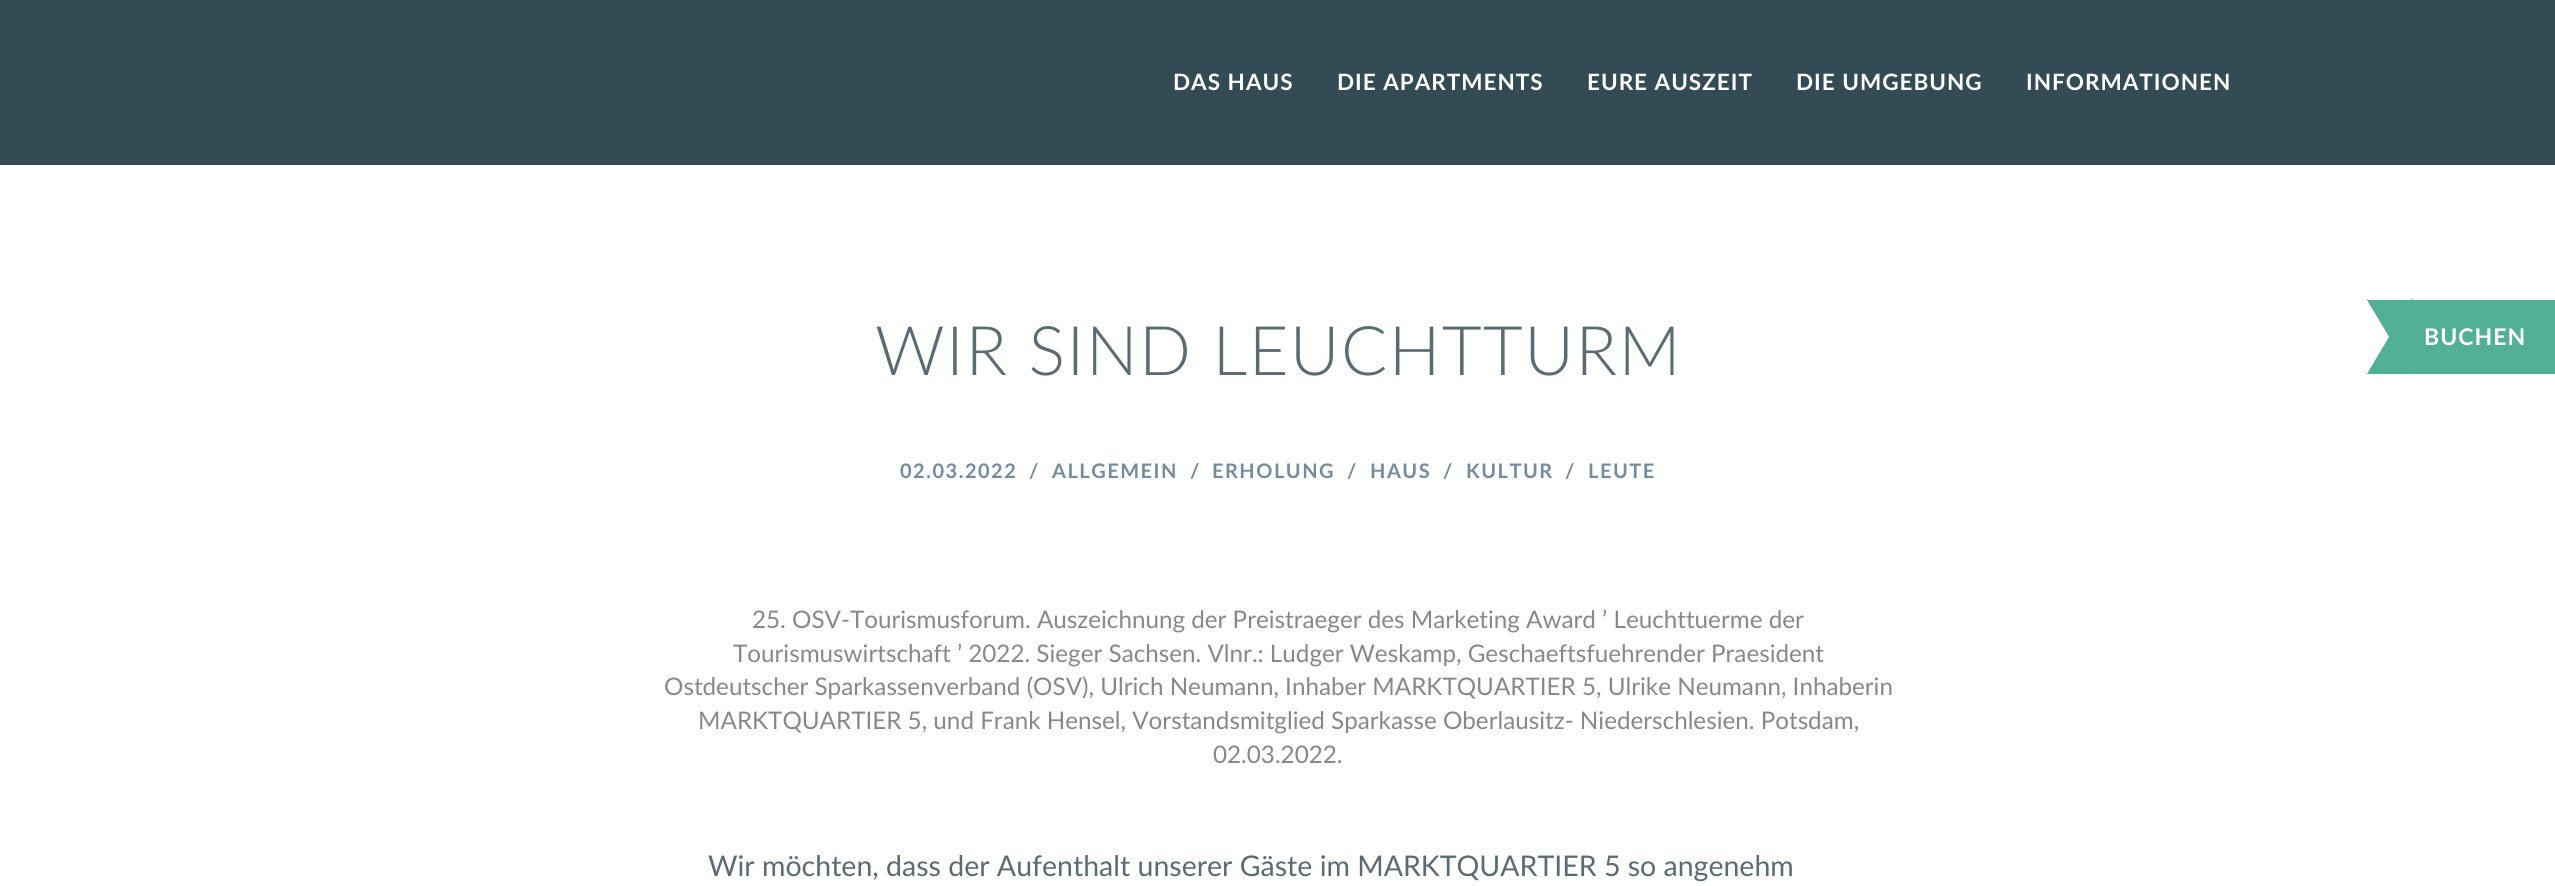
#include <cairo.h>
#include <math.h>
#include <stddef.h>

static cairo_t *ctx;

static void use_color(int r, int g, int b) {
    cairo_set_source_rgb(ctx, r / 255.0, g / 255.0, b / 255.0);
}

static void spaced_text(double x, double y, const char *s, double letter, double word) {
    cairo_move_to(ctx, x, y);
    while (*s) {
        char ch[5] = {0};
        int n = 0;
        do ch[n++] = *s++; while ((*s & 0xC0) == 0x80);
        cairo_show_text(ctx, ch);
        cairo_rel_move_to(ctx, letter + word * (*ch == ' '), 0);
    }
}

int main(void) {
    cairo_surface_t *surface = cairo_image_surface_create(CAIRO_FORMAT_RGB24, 2555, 886);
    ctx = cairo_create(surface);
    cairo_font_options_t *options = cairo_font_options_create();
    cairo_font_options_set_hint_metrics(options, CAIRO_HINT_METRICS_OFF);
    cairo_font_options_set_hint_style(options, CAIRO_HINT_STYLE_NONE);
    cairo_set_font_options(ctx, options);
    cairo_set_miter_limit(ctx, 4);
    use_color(255, 255, 255);
    cairo_paint(ctx);
    use_color(51, 75, 85);
    cairo_rectangle(ctx, 0, 0, 2555, 165);
    cairo_fill(ctx);
    cairo_select_font_face(ctx, "Lato", CAIRO_FONT_SLANT_NORMAL, CAIRO_FONT_WEIGHT_BOLD);
    cairo_set_font_size(ctx, 22.5);
    use_color(255, 255, 255);
    spaced_text(1173, 90, "DAS HAUS", 1, 0);
    spaced_text(1337, 90, "DIE APARTMENTS", 1, 0);
    spaced_text(1587, 90, "EURE AUSZEIT", 1, 0);
    spaced_text(1796, 90, "DIE UMGEBUNG", 1, 0);
    spaced_text(2026, 90, "INFORMATIONEN", 1, 0);
    cairo_select_font_face(ctx, "Lato Light", CAIRO_FONT_SLANT_NORMAL, CAIRO_FONT_WEIGHT_NORMAL);
    cairo_set_font_size(ctx, 68.4);
    use_color(90, 107, 116);
    spaced_text(875, 375, "WIR SIND LEUCHTTURM", 1.5, 0);
    cairo_select_font_face(ctx, "Lato", CAIRO_FONT_SLANT_NORMAL, CAIRO_FONT_WEIGHT_BOLD);
    cairo_set_font_size(ctx, 20);
    use_color(116, 140, 156);
    spaced_text(900, 478, "02.03.2022", 1.5, 0);
    spaced_text(1029, 478, "/", 1.5, 0);
    spaced_text(1052, 478, "ALLGEMEIN", 1.5, 0);
    spaced_text(1190, 478, "/", 1.5, 0);
    spaced_text(1212, 478, "ERHOLUNG", 1.5, 0);
    spaced_text(1347, 478, "/", 1.5, 0);
    spaced_text(1370, 478, "HAUS", 1.5, 0);
    spaced_text(1443, 478, "/", 1.5, 0);
    spaced_text(1466, 478, "KULTUR", 1.5, 0);
    spaced_text(1565, 478, "/", 1.5, 0);
    spaced_text(1588, 478, "LEUTE", 1.5, 0);
    cairo_select_font_face(ctx, "Lato", CAIRO_FONT_SLANT_NORMAL, CAIRO_FONT_WEIGHT_NORMAL);
    cairo_set_font_size(ctx, 24.22);
    use_color(136, 136, 136);
    cairo_move_to(ctx, 752, 628);
    cairo_show_text(ctx, "25. OSV-Tourismusforum. Auszeichnung der Preistraeger des Marketing Award ’ Leuchttuerme der");
    cairo_move_to(ctx, 733, 662);
    cairo_show_text(ctx, "Tourismuswirtschaft ’ 2022. Sieger Sachsen. Vlnr.: Ludger Weskamp, Geschaeftsfuehrender Praesident");
    cairo_move_to(ctx, 664, 695);
    cairo_show_text(ctx, "Ostdeutscher Sparkassenverband (OSV), Ulrich Neumann, Inhaber MARKTQUARTIER 5, Ulrike Neumann, Inhaberin");
    cairo_move_to(ctx, 698, 729);
    cairo_show_text(ctx, "MARKTQUARTIER 5, und Frank Hensel, Vorstandsmitglied Sparkasse Oberlausitz- Niederschlesien. Potsdam,");
    cairo_move_to(ctx, 1213, 763);
    cairo_show_text(ctx, "02.03.2022.");
    cairo_set_font_size(ctx, 28.5);
    use_color(90, 107, 116);
    cairo_move_to(ctx, 708, 876);
    cairo_show_text(ctx, "Wir möchten, dass der Aufenthalt unserer Gäste im MARKTQUARTIER 5 so angenehm");
    use_color(82, 176, 150);
    cairo_rectangle(ctx, 2412, 300, 143, 74);
    cairo_fill(ctx);
    cairo_new_path(ctx);
    cairo_move_to(ctx, 2412, 300);
    cairo_line_to(ctx, 2412, 375);
    cairo_line_to(ctx, 2367, 300);
    cairo_close_path(ctx);
    cairo_fill(ctx);
    cairo_new_path(ctx);
    cairo_move_to(ctx, 2412, 374);
    cairo_line_to(ctx, 2367, 374);
    cairo_line_to(ctx, 2412, 298);
    cairo_close_path(ctx);
    cairo_fill(ctx);
    cairo_select_font_face(ctx, "Lato", CAIRO_FONT_SLANT_NORMAL, CAIRO_FONT_WEIGHT_BOLD);
    cairo_set_font_size(ctx, 23);
    use_color(255, 255, 255);
    spaced_text(2424, 345, "BUCHEN", 1, 0);
    cairo_surface_write_to_png(surface, "result.png");
    cairo_font_options_destroy(options);
    cairo_destroy(ctx);
    cairo_surface_destroy(surface);
    return 0;
}
